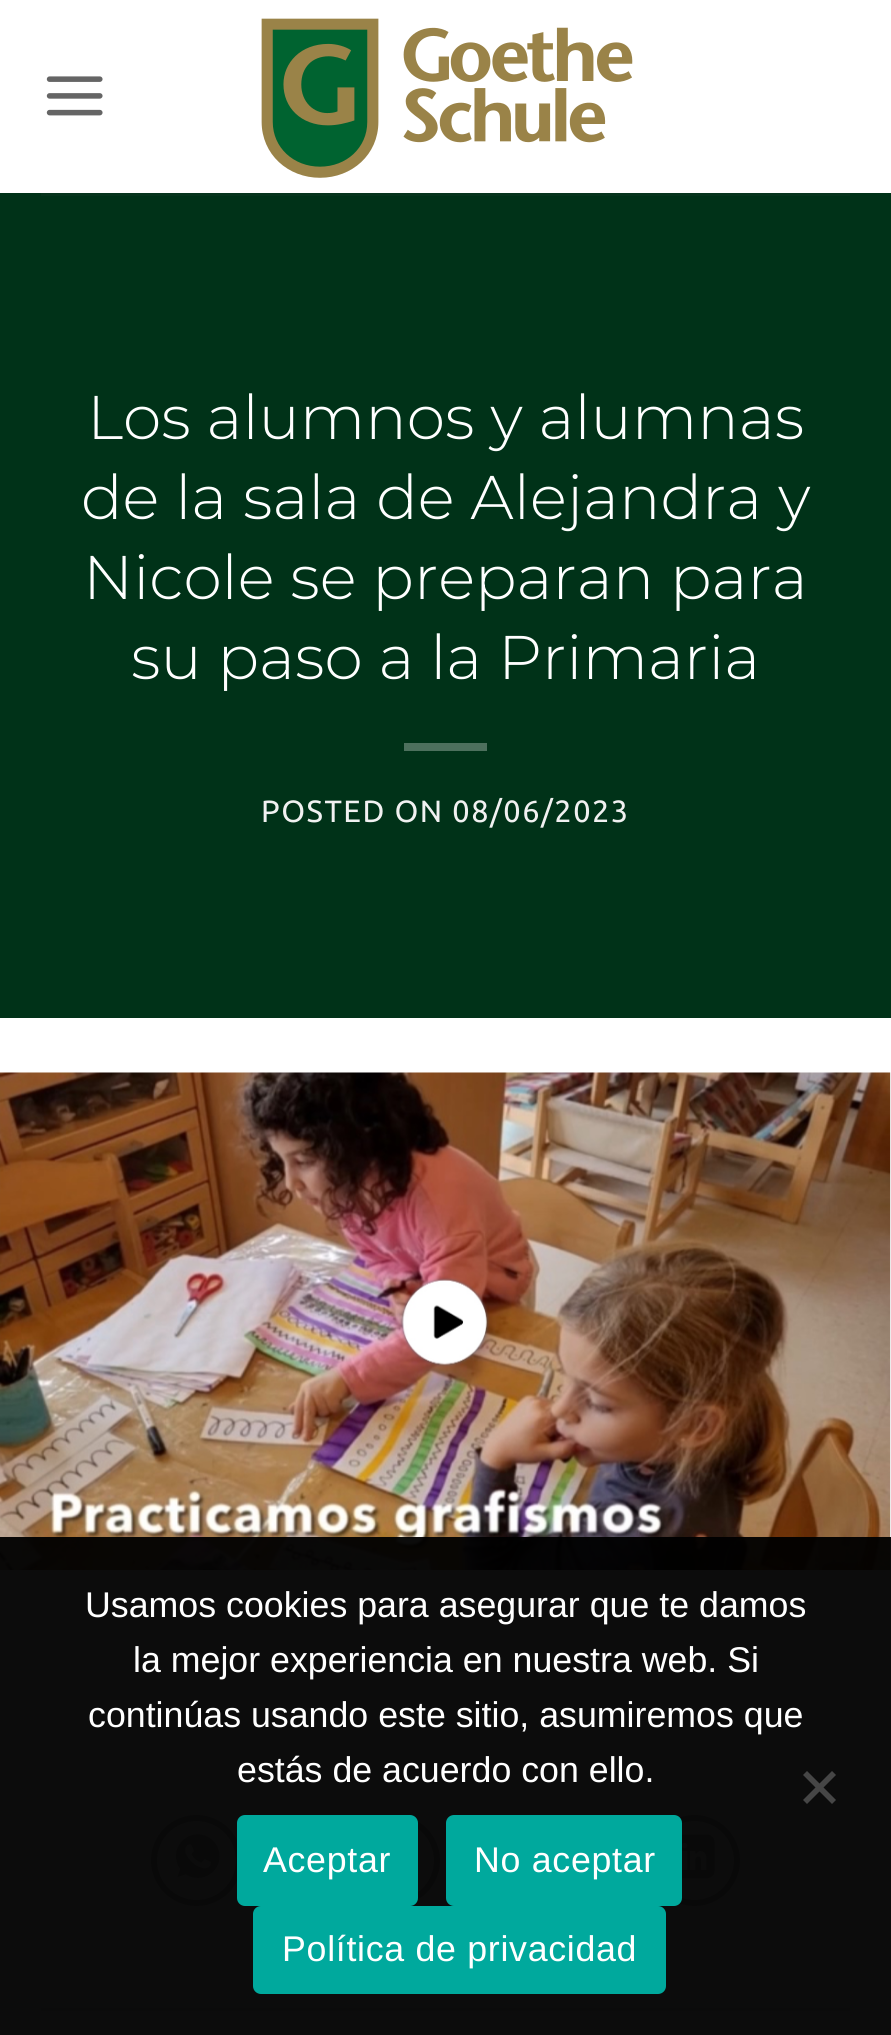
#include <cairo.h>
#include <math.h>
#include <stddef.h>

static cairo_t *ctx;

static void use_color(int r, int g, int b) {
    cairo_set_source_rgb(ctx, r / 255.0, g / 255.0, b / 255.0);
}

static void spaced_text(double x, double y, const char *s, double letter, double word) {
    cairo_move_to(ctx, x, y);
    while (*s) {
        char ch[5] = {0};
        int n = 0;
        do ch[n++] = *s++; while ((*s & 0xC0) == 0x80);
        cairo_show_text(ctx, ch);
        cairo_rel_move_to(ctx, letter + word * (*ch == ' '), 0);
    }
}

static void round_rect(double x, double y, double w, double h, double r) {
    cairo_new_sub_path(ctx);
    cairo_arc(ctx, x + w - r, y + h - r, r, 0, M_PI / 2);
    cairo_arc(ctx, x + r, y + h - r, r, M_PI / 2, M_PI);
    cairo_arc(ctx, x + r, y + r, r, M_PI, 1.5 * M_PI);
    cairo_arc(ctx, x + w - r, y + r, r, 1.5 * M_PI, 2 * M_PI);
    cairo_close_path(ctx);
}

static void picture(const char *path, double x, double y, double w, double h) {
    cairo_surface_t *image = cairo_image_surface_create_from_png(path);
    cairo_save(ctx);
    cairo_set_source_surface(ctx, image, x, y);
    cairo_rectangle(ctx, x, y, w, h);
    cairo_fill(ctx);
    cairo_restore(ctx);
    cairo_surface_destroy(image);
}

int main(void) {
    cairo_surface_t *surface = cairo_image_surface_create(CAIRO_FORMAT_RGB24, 891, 2035);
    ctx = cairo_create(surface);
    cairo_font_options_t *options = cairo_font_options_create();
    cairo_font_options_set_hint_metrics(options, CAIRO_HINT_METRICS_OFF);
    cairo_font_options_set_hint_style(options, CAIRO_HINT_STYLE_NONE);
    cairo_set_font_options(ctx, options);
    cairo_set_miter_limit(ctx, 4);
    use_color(255, 255, 255);
    cairo_paint(ctx);
    picture("img1.png", 46, 76, 57, 40);
    picture("img2.png", 261, 18, 372, 160);
    use_color(0, 50, 24);
    cairo_rectangle(ctx, 0, 193, 891, 825);
    cairo_fill(ctx);
    use_color(7, 52, 29);
    cairo_rectangle(ctx, 41, 193, 809, 3);
    cairo_fill(ctx);
    cairo_select_font_face(ctx, "Montserrat Thin", CAIRO_FONT_SLANT_NORMAL, CAIRO_FONT_WEIGHT_NORMAL);
    cairo_set_font_size(ctx, 61.6);
    use_color(255, 255, 255);
    cairo_move_to(ctx, 87, 439);
    cairo_show_text(ctx, "Los alumnos y alumnas");
    cairo_move_to(ctx, 81, 519);
    cairo_show_text(ctx, "de la sala de Alejandra y");
    cairo_move_to(ctx, 83, 599);
    cairo_show_text(ctx, "Nicole se preparan para");
    cairo_move_to(ctx, 131, 679);
    cairo_show_text(ctx, "su paso a la Primaria");
    use_color(77, 112, 93);
    cairo_rectangle(ctx, 404, 743, 83, 8);
    cairo_fill(ctx);
    cairo_select_font_face(ctx, "Ubuntu", CAIRO_FONT_SLANT_NORMAL, CAIRO_FONT_WEIGHT_NORMAL);
    cairo_set_font_size(ctx, 30.75);
    use_color(241, 241, 241);
    spaced_text(261, 822, "POSTED ON 08/06/2023", 1.5, 0);
    picture("img3.png", 0, 1072, 891, 498);
    use_color(230, 230, 230);
    cairo_rectangle(ctx, 404, 1763, 83, 8);
    cairo_fill(ctx);
    cairo_arc(ctx, 196.5, 1860.5, 42.5, 0, 2 * M_PI);
    use_color(192, 192, 192);
    cairo_set_line_width(ctx, 6);
    cairo_stroke(ctx);
    picture("img4.png", 176, 1834, 44, 44);
    cairo_arc(ctx, 394.5, 1860.5, 42.5, 0, 2 * M_PI);
    cairo_stroke(ctx);
    cairo_arc(ctx, 694.5, 1860.5, 42.5, 0, 2 * M_PI);
    cairo_stroke(ctx);
    picture("img5.png", 682, 1834, 33, 45);
    use_color(236, 236, 236);
    cairo_rectangle(ctx, 41, 2008, 809, 3);
    cairo_fill(ctx);
    cairo_set_source_rgba(ctx, 0, 0, 0, 0.95);
    cairo_rectangle(ctx, 0, 1537, 891, 498);
    cairo_fill(ctx);
    cairo_select_font_face(ctx, "Liberation Sans", CAIRO_FONT_SLANT_NORMAL, CAIRO_FONT_WEIGHT_NORMAL);
    cairo_set_font_size(ctx, 35.75);
    use_color(255, 255, 255);
    cairo_move_to(ctx, 85, 1617);
    cairo_show_text(ctx, "Usamos cookies para asegurar que te damos");
    cairo_move_to(ctx, 133, 1672);
    cairo_show_text(ctx, "la mejor experiencia en nuestra web. Si");
    cairo_move_to(ctx, 88, 1727);
    cairo_show_text(ctx, "continúas usando este sitio, asumiremos que");
    cairo_move_to(ctx, 237, 1782);
    cairo_show_text(ctx, "estás de acuerdo con ello.");
    use_color(70, 70, 70);
    cairo_new_path(ctx);
    cairo_move_to(ctx, 832, 1771);
    cairo_line_to(ctx, 836, 1775);
    cairo_line_to(ctx, 807, 1804);
    cairo_line_to(ctx, 803, 1800);
    cairo_close_path(ctx);
    cairo_fill(ctx);
    cairo_new_path(ctx);
    cairo_move_to(ctx, 803, 1775);
    cairo_line_to(ctx, 807, 1771);
    cairo_line_to(ctx, 836, 1800);
    cairo_line_to(ctx, 832, 1804);
    cairo_close_path(ctx);
    cairo_fill(ctx);
    use_color(0, 169, 157);
    round_rect(237, 1815, 181, 91, 8);
    cairo_fill(ctx);
    use_color(255, 255, 255);
    spaced_text(263, 1872, "Aceptar", 0.7, 0);
    use_color(0, 169, 157);
    round_rect(446, 1815, 236, 91, 8);
    cairo_fill(ctx);
    use_color(255, 255, 255);
    spaced_text(474, 1872, "No aceptar", 0.7, 0);
    use_color(0, 169, 157);
    round_rect(253, 1906, 413, 88, 8);
    cairo_fill(ctx);
    use_color(255, 255, 255);
    spaced_text(282, 1961, "Política de privacidad", 0.7, 0);
    cairo_surface_write_to_png(surface, "result.png");
    cairo_font_options_destroy(options);
    cairo_destroy(ctx);
    cairo_surface_destroy(surface);
    return 0;
}
